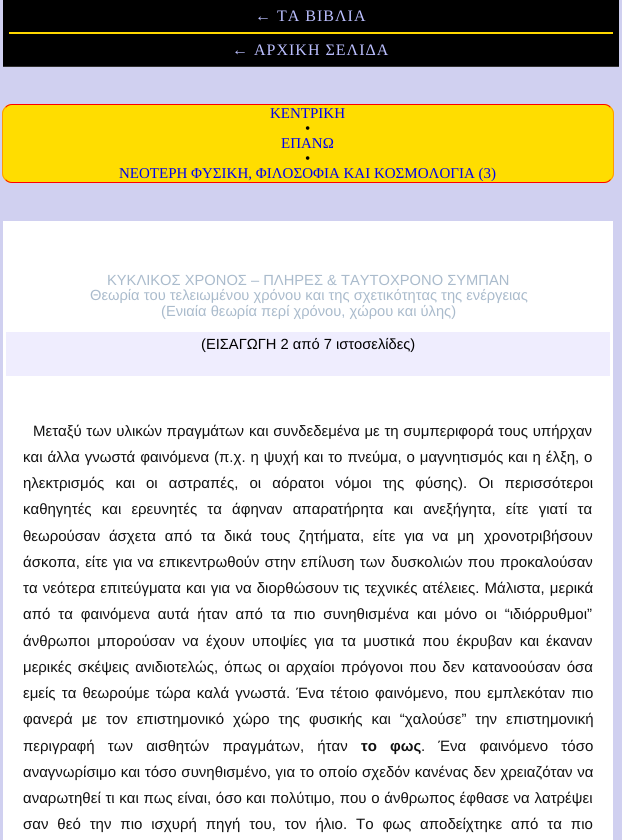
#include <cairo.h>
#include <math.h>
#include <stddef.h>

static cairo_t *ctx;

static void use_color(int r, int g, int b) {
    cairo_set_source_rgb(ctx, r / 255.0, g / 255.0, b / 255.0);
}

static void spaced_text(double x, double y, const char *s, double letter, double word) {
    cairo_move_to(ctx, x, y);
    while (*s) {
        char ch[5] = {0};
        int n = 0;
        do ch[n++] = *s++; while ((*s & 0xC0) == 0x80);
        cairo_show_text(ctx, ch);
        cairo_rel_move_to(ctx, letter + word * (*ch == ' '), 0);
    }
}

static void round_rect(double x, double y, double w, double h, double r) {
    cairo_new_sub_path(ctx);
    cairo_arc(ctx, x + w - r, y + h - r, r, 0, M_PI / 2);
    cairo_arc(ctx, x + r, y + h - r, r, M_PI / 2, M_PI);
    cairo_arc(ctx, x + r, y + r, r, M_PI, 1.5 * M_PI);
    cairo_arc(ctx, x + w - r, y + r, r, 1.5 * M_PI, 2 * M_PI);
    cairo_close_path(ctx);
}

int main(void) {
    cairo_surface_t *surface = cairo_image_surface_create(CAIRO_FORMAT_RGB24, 622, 840);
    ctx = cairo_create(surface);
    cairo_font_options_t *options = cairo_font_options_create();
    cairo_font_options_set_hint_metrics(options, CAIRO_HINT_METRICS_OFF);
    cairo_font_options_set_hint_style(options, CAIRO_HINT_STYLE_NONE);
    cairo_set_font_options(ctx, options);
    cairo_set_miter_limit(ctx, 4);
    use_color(208, 208, 240);
    cairo_paint(ctx);
    use_color(0, 0, 0);
    cairo_rectangle(ctx, 3, 0, 616, 66);
    cairo_fill(ctx);
    use_color(48, 48, 48);
    cairo_rectangle(ctx, 3, 66, 616, 1);
    cairo_fill(ctx);
    use_color(255, 215, 0);
    cairo_rectangle(ctx, 9, 32, 604, 2);
    cairo_fill(ctx);
    cairo_select_font_face(ctx, "Liberation Serif", CAIRO_FONT_SLANT_NORMAL, CAIRO_FONT_WEIGHT_NORMAL);
    cairo_set_font_size(ctx, 16);
    use_color(187, 191, 255);
    spaced_text(255, 21, "← ΤΑ ΒΙΒΛΙΑ", 1, 0);
    spaced_text(232, 55, "← ΑΡΧΙΚΗ ΣΕΛΙΔΑ", 1, 0);
    use_color(255, 221, 0);
    round_rect(2, 104, 612, 79, 10);
    cairo_fill(ctx);
    cairo_new_path(ctx);
    cairo_move_to(ctx, 5.5, 107.5);
    cairo_curve_to(ctx, 7, 105.5, 9.5, 104.5, 12, 104.5);
    cairo_line_to(ctx, 604, 104.5);
    cairo_curve_to(ctx, 606.5, 104.5, 609, 105.5, 610.5, 107.5);
    use_color(255, 0, 0);
    cairo_set_line_width(ctx, 1);
    cairo_stroke(ctx);
    cairo_new_path(ctx);
    cairo_move_to(ctx, 610.5, 107.5);
    cairo_curve_to(ctx, 612.5, 109, 613.5, 111.5, 613.5, 114);
    cairo_line_to(ctx, 613.5, 173);
    cairo_curve_to(ctx, 613.5, 175.5, 612.5, 178, 610.5, 179.5);
    use_color(255, 153, 0);
    cairo_stroke(ctx);
    cairo_new_path(ctx);
    cairo_move_to(ctx, 610.5, 179.5);
    cairo_curve_to(ctx, 609, 181.5, 606.5, 182.5, 604, 182.5);
    cairo_line_to(ctx, 12, 182.5);
    cairo_curve_to(ctx, 9.5, 182.5, 7, 181.5, 5.5, 179.5);
    use_color(255, 0, 0);
    cairo_stroke(ctx);
    cairo_new_path(ctx);
    cairo_move_to(ctx, 5.5, 179.5);
    cairo_curve_to(ctx, 3.5, 178, 2.5, 175.5, 2.5, 173);
    cairo_line_to(ctx, 2.5, 114);
    cairo_curve_to(ctx, 2.5, 111.5, 3.5, 109, 5.5, 107.5);
    use_color(255, 153, 0);
    cairo_stroke(ctx);
    cairo_set_font_size(ctx, 15);
    use_color(0, 0, 238);
    cairo_move_to(ctx, 270, 118);
    cairo_show_text(ctx, "ΚΕΝΤΡΙΚΗ");
    use_color(0, 0, 0);
    cairo_move_to(ctx, 305, 133);
    cairo_show_text(ctx, "•");
    use_color(0, 0, 238);
    cairo_move_to(ctx, 281, 148);
    cairo_show_text(ctx, "ΕΠΑΝΩ");
    use_color(0, 0, 0);
    cairo_move_to(ctx, 305, 163);
    cairo_show_text(ctx, "•");
    use_color(0, 0, 238);
    cairo_move_to(ctx, 119, 178);
    cairo_show_text(ctx, "ΝΕΟΤΕΡΗ ΦΥΣΙΚΗ, ΦΙΛΟΣΟΦΙΑ ΚΑΙ ΚΟΣΜΟΛΟΓΙΑ (3)");
    use_color(255, 255, 255);
    cairo_rectangle(ctx, 3, 221, 610, 619);
    cairo_fill(ctx);
    cairo_select_font_face(ctx, "Liberation Sans", CAIRO_FONT_SLANT_NORMAL, CAIRO_FONT_WEIGHT_NORMAL);
    cairo_set_font_size(ctx, 14.7);
    use_color(170, 187, 204);
    cairo_move_to(ctx, 107, 285);
    cairo_show_text(ctx, "ΚΥΚΛΙΚΟΣ ΧΡΟΝΟΣ – ΠΛΗΡΕΣ & ΤΑΥΤΟΧΡΟΝΟ ΣΥΜΠΑΝ");
    cairo_move_to(ctx, 90, 300);
    cairo_show_text(ctx, "Θεωρία του τελειωμένου χρόνου και της σχετικότητας της ενέργειας");
    cairo_move_to(ctx, 161, 316);
    cairo_show_text(ctx, "(Ενιαία θεωρία περί χρόνου, χώρου και ύλης)");
    use_color(239, 237, 254);
    cairo_rectangle(ctx, 6, 332, 604, 44);
    cairo_fill(ctx);
    use_color(0, 0, 0);
    cairo_move_to(ctx, 201, 349);
    cairo_show_text(ctx, "(ΕΙΣΑΓΩΓΗ 2 από 7 ιστοσελίδες)");
    cairo_set_font_size(ctx, 15);
    use_color(17, 17, 17);
    spaced_text(33, 436, "Μεταξύ των υλικών πραγμάτων", 0, 0.5);
    spaced_text(249, 436, "και συνδεδεμένα με τη συμπεριφορά τους υπήρχαν", 0, 0.5);
    spaced_text(23, 462, "και άλλα γνωστά φαινόμενα", 0, 0.75);
    spaced_text(214, 462, "(π.χ. η ψυχή και το πνεύμα, ο μαγνητισμός και η έλξη, ο", 0, 0.75);
    spaced_text(23, 488, "ηλεκτρισμός και", 0, 7);
    spaced_text(146, 488, "οι αστραπές, οι αόρατοι νόμοι της φύσης). Οι περισσότεροι", 0, 7);
    spaced_text(23, 514, "καθηγητές και ερευνητές τα άφηναν απαρατήρητα και ανεξήγητα, είτε γιατί τα", 0, 6);
    spaced_text(23, 541, "θεωρούσαν άσχετα από τα δικά τους ζητήματα, είτε για να μη", 0, 4.5);
    cairo_move_to(ctx, 484, 541);
    cairo_show_text(ctx, "χρονοτριβήσουν");
    spaced_text(23, 567, "άσκοπα, είτε για να επικεντρωθούν στην επίλυση των", 0, 1);
    spaced_text(391, 567, "δυσκολιών που προκαλούσαν", 0, 1);
    spaced_text(23, 593, "τα νεότερα επιτεύγματα και για να διορθώσουν", 0, 1);
    spaced_text(343, 593, "τις τεχνικές ατέλειες. Μάλιστα, μερικά", 0, 1);
    spaced_text(23, 619, "από τα φαινόμενα αυτά ήταν από τα πιο συνηθισμένα και μόνο οι “ιδιόρρυθμοι”", 0, 3.75);
    spaced_text(23, 646, "άνθρωποι μπορούσαν να έχουν υποψίες για τα μυστικά που έκρυβαν και", 0, 3.25);
    cairo_move_to(ctx, 546, 646);
    cairo_show_text(ctx, "έκαναν");
    spaced_text(23, 672, "μερικές σκέψεις ανιδιοτελώς, όπως οι αρχαίοι πρόγονοι που δεν", 0, 2);
    spaced_text(472, 672, "κατανοούσαν όσα", 0, 2);
    spaced_text(23, 698, "εμείς τα θεωρούμε τώρα καλά γνωστά. Ένα τέτοιο φαινόμενο, που εμπλεκόταν πιο", 0, 2);
    spaced_text(23, 724, "φανερά με τον επιστημονικό χώρο της φυσικής και “χαλούσε” την επιστημονική", 0, 4.75);
    spaced_text(23, 751, "περιγραφή των αισθητών πραγμάτων, ήταν", 0, 9);
    cairo_select_font_face(ctx, "Liberation Sans", CAIRO_FONT_SLANT_NORMAL, CAIRO_FONT_WEIGHT_BOLD);
    spaced_text(361, 751, "το φως", 0, 9);
    cairo_select_font_face(ctx, "Liberation Sans", CAIRO_FONT_SLANT_NORMAL, CAIRO_FONT_WEIGHT_NORMAL);
    spaced_text(421, 751, ". Ένα φαινόμενο τόσο", 0, 9);
    spaced_text(23, 777, "αναγνωρίσιμο και τόσο συνηθισμένο, για το οποίο σχεδόν κανένας δεν χρειαζόταν να", 0, 0.5);
    spaced_text(23, 803, "αναρωτηθεί τι και πως είναι, όσο", 0, 0.5);
    spaced_text(246, 803, "και πολύτιμο, που ο άνθρωπος έφθασε να λατρέψει", 0, 0.5);
    spaced_text(23, 829, "σαν θεό την πιο ισχυρή πηγή του, τον ήλιο. Το φως αποδείχτηκε από τα πιο", 0, 4.75);
    cairo_surface_write_to_png(surface, "result.png");
    cairo_font_options_destroy(options);
    cairo_destroy(ctx);
    cairo_surface_destroy(surface);
    return 0;
}
